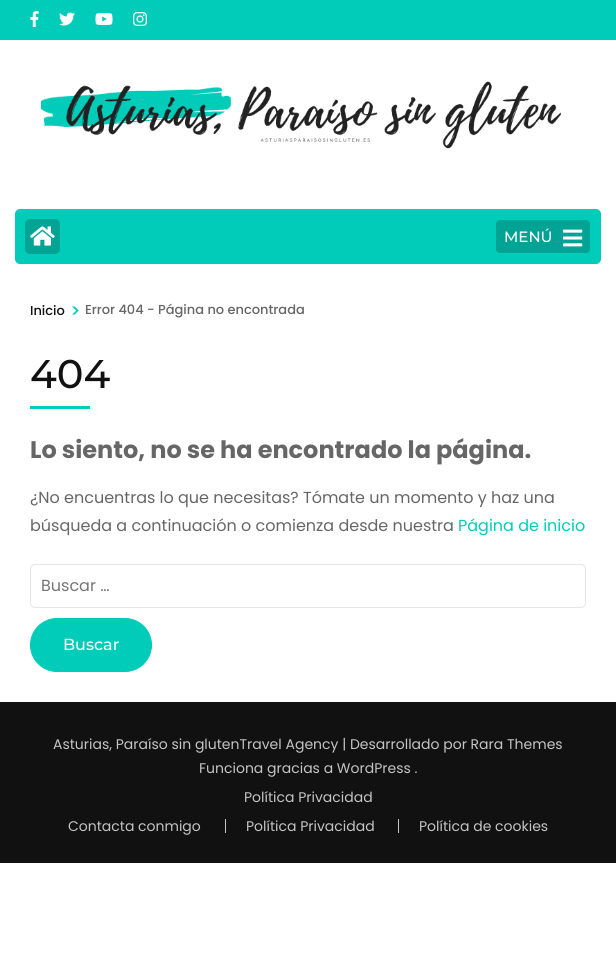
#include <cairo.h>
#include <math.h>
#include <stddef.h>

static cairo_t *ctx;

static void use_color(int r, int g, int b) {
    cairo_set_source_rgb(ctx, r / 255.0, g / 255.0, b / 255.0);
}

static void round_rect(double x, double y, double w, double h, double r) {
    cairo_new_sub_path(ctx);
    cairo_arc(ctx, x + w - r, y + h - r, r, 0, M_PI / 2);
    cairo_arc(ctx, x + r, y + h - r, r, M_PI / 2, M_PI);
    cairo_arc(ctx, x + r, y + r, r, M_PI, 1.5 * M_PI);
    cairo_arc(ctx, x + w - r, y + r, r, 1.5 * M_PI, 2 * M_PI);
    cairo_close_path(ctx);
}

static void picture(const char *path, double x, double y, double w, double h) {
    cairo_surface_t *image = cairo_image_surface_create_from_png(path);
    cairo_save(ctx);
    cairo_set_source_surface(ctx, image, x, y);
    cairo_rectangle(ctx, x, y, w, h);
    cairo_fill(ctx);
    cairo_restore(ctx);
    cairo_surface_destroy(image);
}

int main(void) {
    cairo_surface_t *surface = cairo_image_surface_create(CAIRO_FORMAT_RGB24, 616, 962);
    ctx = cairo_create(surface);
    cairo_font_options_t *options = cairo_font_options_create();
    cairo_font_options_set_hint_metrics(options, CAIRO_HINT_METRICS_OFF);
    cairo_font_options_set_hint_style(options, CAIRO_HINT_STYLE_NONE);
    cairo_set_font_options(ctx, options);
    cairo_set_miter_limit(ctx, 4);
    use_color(255, 255, 255);
    cairo_paint(ctx);
    use_color(0, 204, 185);
    cairo_rectangle(ctx, 0, 0, 616, 40);
    cairo_fill(ctx);
    picture("img1.png", 30, 11, 9, 16);
    picture("img2.png", 59, 12, 16, 14);
    picture("img3.png", 95, 13, 18, 12);
    picture("img4.png", 133, 12, 14, 14);
    picture("img5.png", 40, 81, 521, 68);
    round_rect(15, 209, 586, 55, 5);
    cairo_fill(ctx);
    use_color(0, 163, 148);
    round_rect(25, 219, 35, 35, 5);
    cairo_fill(ctx);
    picture("img6.png", 30, 226, 25, 20);
    round_rect(495.5, 219.5, 95, 34, 4.5);
    cairo_fill_preserve(ctx);
    use_color(0, 204, 185);
    cairo_set_line_width(ctx, 1);
    cairo_stroke(ctx);
    cairo_select_font_face(ctx, "Montserrat Medium", CAIRO_FONT_SLANT_NORMAL, CAIRO_FONT_WEIGHT_NORMAL);
    cairo_set_font_size(ctx, 15);
    use_color(255, 255, 255);
    cairo_move_to(ctx, 504, 242);
    cairo_show_text(ctx, "MENÚ");
    picture("img7.png", 563, 229, 20, 18);
    cairo_select_font_face(ctx, "Poppins Medium", CAIRO_FONT_SLANT_NORMAL, CAIRO_FONT_WEIGHT_NORMAL);
    cairo_set_font_size(ctx, 13);
    use_color(17, 17, 17);
    cairo_move_to(ctx, 30, 315);
    cairo_show_text(ctx, "Inicio");
    cairo_set_font_size(ctx, 18);
    use_color(0, 204, 185);
    cairo_move_to(ctx, 70, 317);
    cairo_show_text(ctx, ">");
    cairo_set_font_size(ctx, 13);
    use_color(102, 102, 102);
    cairo_move_to(ctx, 85, 314);
    cairo_show_text(ctx, "Error 404 - Página no encontrada");
    cairo_select_font_face(ctx, "Montserrat Medium", CAIRO_FONT_SLANT_NORMAL, CAIRO_FONT_WEIGHT_NORMAL);
    cairo_set_font_size(ctx, 40);
    use_color(17, 17, 17);
    cairo_move_to(ctx, 30, 388);
    cairo_show_text(ctx, "404");
    use_color(0, 204, 185);
    cairo_rectangle(ctx, 30, 406, 60, 3);
    cairo_fill(ctx);
    cairo_select_font_face(ctx, "Poppins", CAIRO_FONT_SLANT_NORMAL, CAIRO_FONT_WEIGHT_BOLD);
    cairo_set_font_size(ctx, 24);
    use_color(102, 102, 102);
    cairo_move_to(ctx, 30, 458);
    cairo_show_text(ctx, "Lo siento, no se ha encontrado la página.");
    cairo_select_font_face(ctx, "Poppins", CAIRO_FONT_SLANT_NORMAL, CAIRO_FONT_WEIGHT_NORMAL);
    cairo_set_font_size(ctx, 16);
    cairo_move_to(ctx, 30, 503);
    cairo_show_text(ctx, "¿No encuentras lo que necesitas? Tómate un momento y haz una");
    cairo_move_to(ctx, 30, 531);
    cairo_show_text(ctx, "búsqueda a continuación o comienza desde nuestra");
    use_color(0, 204, 185);
    cairo_move_to(ctx, 458, 531);
    cairo_show_text(ctx, "Página de inicio");
    round_rect(30.5, 564.5, 555, 43, 4.5);
    use_color(229, 229, 229);
    cairo_stroke(ctx);
    use_color(117, 117, 117);
    cairo_move_to(ctx, 41, 591);
    cairo_show_text(ctx, "Buscar …");
    use_color(0, 204, 185);
    round_rect(30.5, 618.5, 121, 53, 26.5);
    cairo_fill_preserve(ctx);
    cairo_stroke(ctx);
    cairo_select_font_face(ctx, "Montserrat Medium", CAIRO_FONT_SLANT_NORMAL, CAIRO_FONT_WEIGHT_NORMAL);
    use_color(255, 255, 255);
    cairo_move_to(ctx, 63, 650);
    cairo_show_text(ctx, "Buscar");
    use_color(17, 17, 17);
    cairo_rectangle(ctx, 0, 702, 616, 161);
    cairo_fill(ctx);
    cairo_select_font_face(ctx, "Poppins", CAIRO_FONT_SLANT_NORMAL, CAIRO_FONT_WEIGHT_NORMAL);
    cairo_set_font_size(ctx, 14);
    use_color(196, 196, 196);
    cairo_move_to(ctx, 53, 749);
    cairo_show_text(ctx, "Asturias, Paraíso sin glutenTravel Agency | Desarrollado por Rara Themes");
    cairo_move_to(ctx, 199, 773);
    cairo_show_text(ctx, "Funciona gracias a WordPress .");
    cairo_move_to(ctx, 244, 802);
    cairo_show_text(ctx, "Política Privacidad");
    cairo_move_to(ctx, 68, 831);
    cairo_show_text(ctx, "Contacta conmigo");
    cairo_rectangle(ctx, 225, 819, 1, 14);
    cairo_fill(ctx);
    cairo_move_to(ctx, 246, 831);
    cairo_show_text(ctx, "Política Privacidad");
    cairo_rectangle(ctx, 398, 819, 1, 14);
    cairo_fill(ctx);
    cairo_move_to(ctx, 419, 831);
    cairo_show_text(ctx, "Política de cookies");
    cairo_surface_write_to_png(surface, "result.png");
    cairo_font_options_destroy(options);
    cairo_destroy(ctx);
    cairo_surface_destroy(surface);
    return 0;
}
